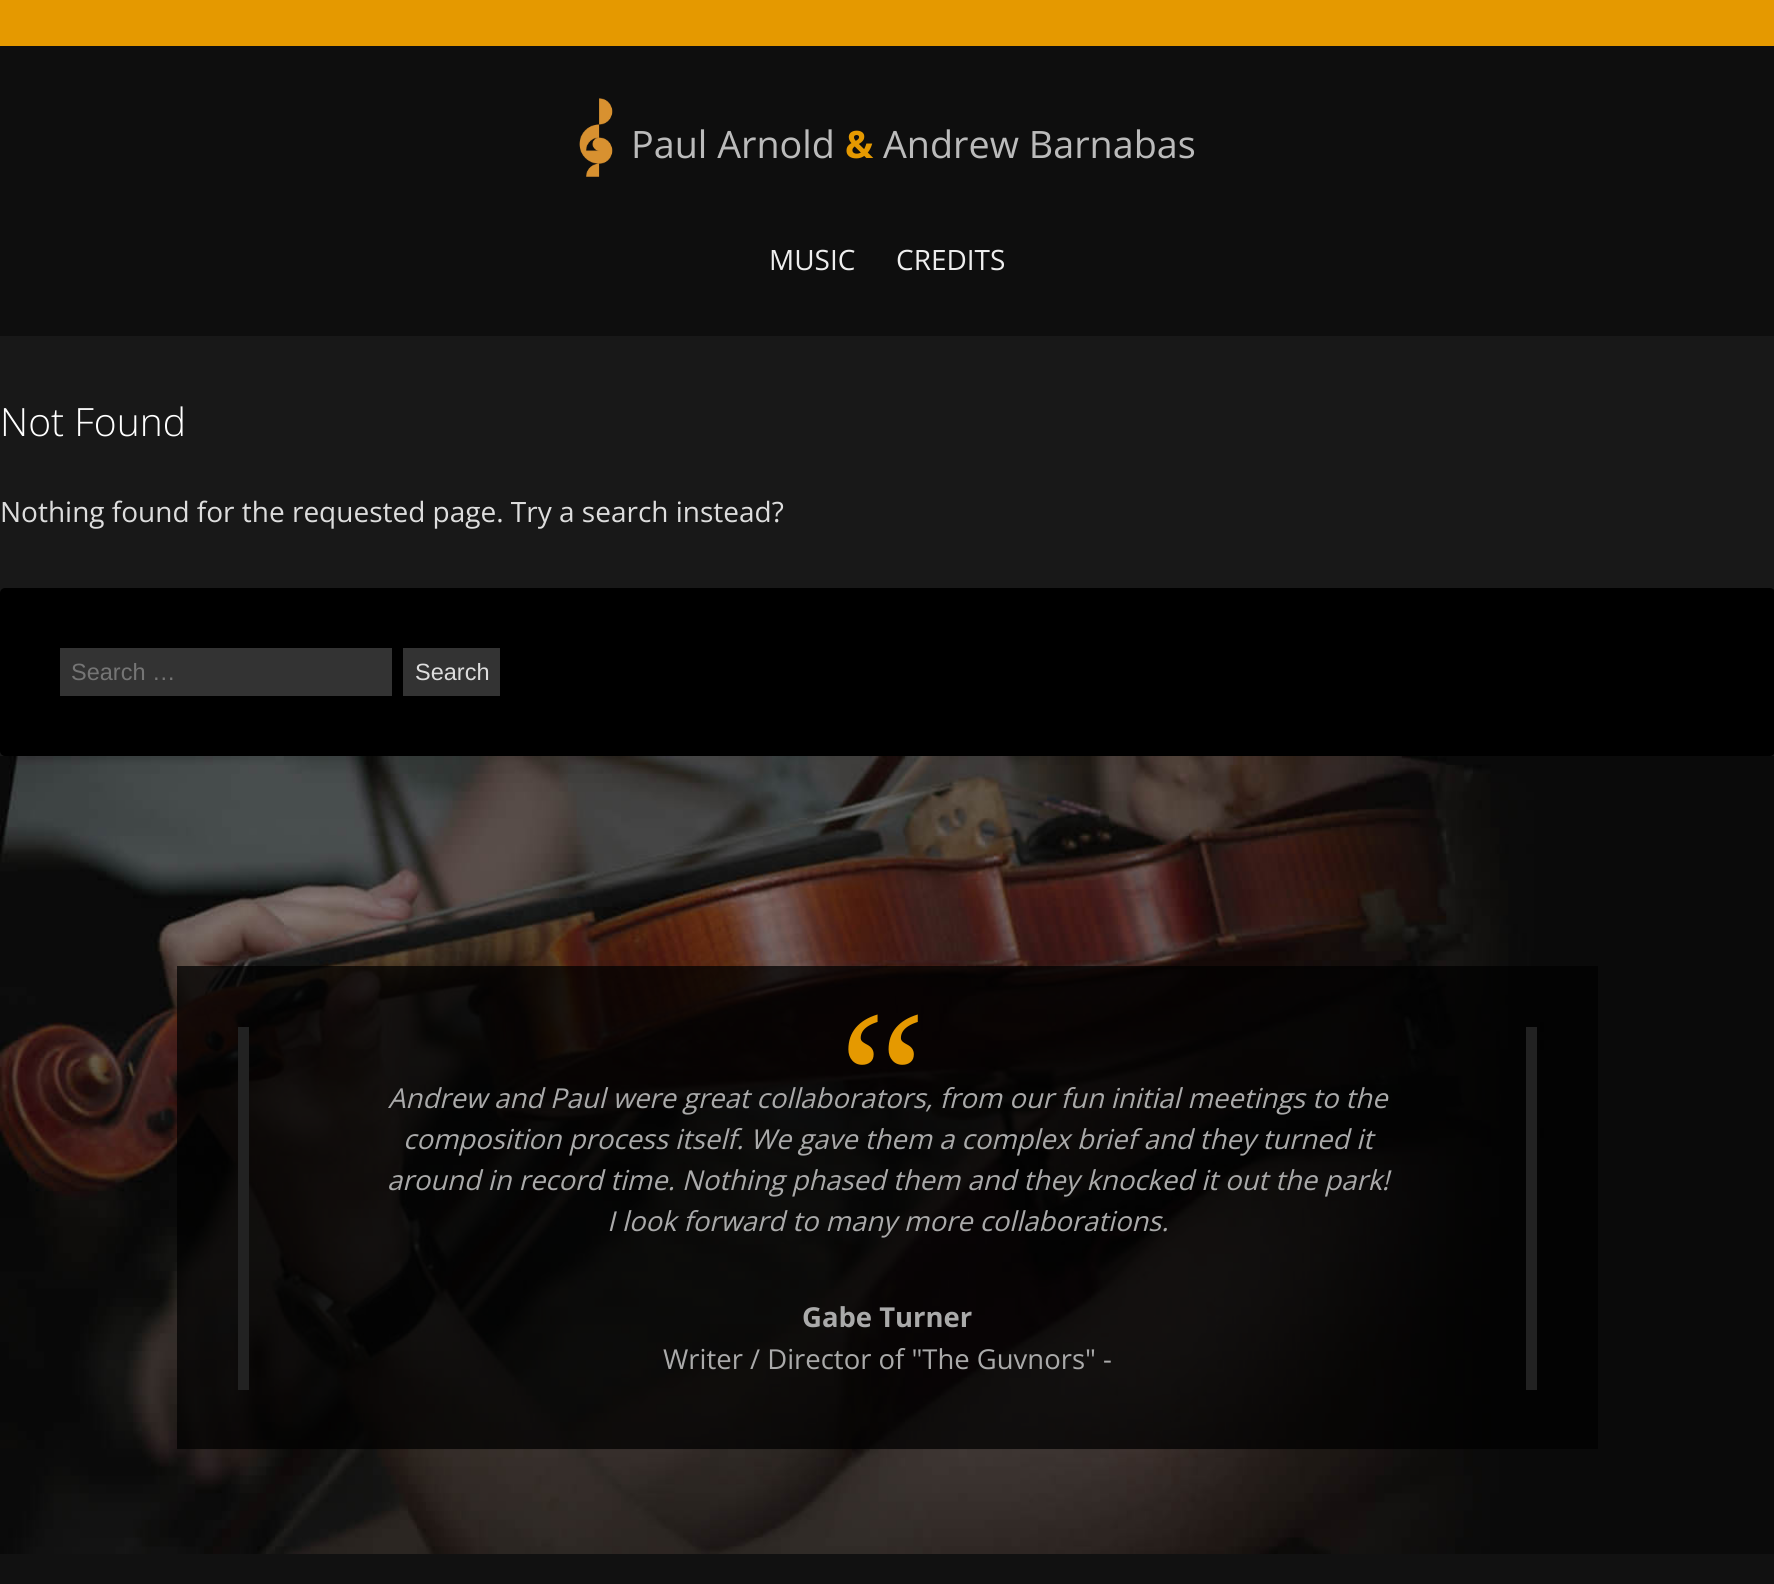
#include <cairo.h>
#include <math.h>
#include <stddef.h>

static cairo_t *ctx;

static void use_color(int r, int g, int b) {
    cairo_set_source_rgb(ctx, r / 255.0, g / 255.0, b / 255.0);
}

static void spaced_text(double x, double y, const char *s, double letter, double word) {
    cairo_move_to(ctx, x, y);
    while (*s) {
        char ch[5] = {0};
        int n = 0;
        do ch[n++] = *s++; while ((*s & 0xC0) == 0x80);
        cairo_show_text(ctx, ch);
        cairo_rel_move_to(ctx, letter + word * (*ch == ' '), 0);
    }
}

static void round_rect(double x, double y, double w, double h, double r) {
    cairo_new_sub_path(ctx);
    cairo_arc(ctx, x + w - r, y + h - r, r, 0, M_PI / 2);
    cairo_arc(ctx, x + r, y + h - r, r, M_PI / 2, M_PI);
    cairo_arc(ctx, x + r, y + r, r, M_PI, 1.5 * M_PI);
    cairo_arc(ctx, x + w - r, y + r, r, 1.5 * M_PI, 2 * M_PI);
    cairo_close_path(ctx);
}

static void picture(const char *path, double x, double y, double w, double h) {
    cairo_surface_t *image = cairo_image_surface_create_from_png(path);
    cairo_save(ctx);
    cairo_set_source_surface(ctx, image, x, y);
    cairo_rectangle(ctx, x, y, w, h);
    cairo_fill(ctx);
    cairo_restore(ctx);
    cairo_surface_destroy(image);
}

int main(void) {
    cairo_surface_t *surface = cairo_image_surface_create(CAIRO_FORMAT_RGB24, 1774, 1584);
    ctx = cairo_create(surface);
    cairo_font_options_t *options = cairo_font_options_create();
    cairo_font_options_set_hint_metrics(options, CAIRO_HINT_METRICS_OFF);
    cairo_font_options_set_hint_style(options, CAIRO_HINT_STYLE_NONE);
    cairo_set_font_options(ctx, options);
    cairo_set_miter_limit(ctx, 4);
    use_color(24, 24, 24);
    cairo_paint(ctx);
    use_color(229, 153, 0);
    cairo_rectangle(ctx, 0, 0, 1774, 46);
    cairo_fill(ctx);
    use_color(14, 14, 14);
    cairo_rectangle(ctx, 0, 46, 1774, 290);
    cairo_fill(ctx);
    picture("img1.png", 579, 98, 34, 79);
    cairo_select_font_face(ctx, "Open Sans", CAIRO_FONT_SLANT_NORMAL, CAIRO_FONT_WEIGHT_NORMAL);
    cairo_set_font_size(ctx, 37.75);
    use_color(187, 187, 187);
    cairo_move_to(ctx, 631, 158);
    cairo_show_text(ctx, "Paul Arnold");
    cairo_select_font_face(ctx, "Open Sans", CAIRO_FONT_SLANT_NORMAL, CAIRO_FONT_WEIGHT_BOLD);
    use_color(229, 153, 0);
    cairo_move_to(ctx, 845, 158);
    cairo_show_text(ctx, "&");
    cairo_select_font_face(ctx, "Open Sans", CAIRO_FONT_SLANT_NORMAL, CAIRO_FONT_WEIGHT_NORMAL);
    use_color(187, 187, 187);
    cairo_move_to(ctx, 883, 158);
    cairo_show_text(ctx, "Andrew Barnabas");
    cairo_set_font_size(ctx, 28);
    use_color(238, 238, 238);
    cairo_move_to(ctx, 769, 270);
    cairo_show_text(ctx, "MUSIC");
    cairo_move_to(ctx, 896, 270);
    cairo_show_text(ctx, "CREDITS");
    cairo_select_font_face(ctx, "Open Sans Light", CAIRO_FONT_SLANT_NORMAL, CAIRO_FONT_WEIGHT_NORMAL);
    cairo_set_font_size(ctx, 39);
    use_color(255, 255, 255);
    cairo_move_to(ctx, 0, 436);
    cairo_show_text(ctx, "Not Found");
    cairo_select_font_face(ctx, "Open Sans", CAIRO_FONT_SLANT_NORMAL, CAIRO_FONT_WEIGHT_NORMAL);
    cairo_set_font_size(ctx, 28);
    use_color(221, 221, 221);
    cairo_move_to(ctx, 0, 522);
    cairo_show_text(ctx, "Nothing found for the requested page. Try a search instead?");
    use_color(0, 0, 0);
    round_rect(1, 589, 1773, 166, 4);
    cairo_fill_preserve(ctx);
    cairo_stroke(ctx);
    use_color(51, 51, 51);
    cairo_rectangle(ctx, 60, 648, 332, 48);
    cairo_fill(ctx);
    cairo_select_font_face(ctx, "Liberation Sans", CAIRO_FONT_SLANT_NORMAL, CAIRO_FONT_WEIGHT_NORMAL);
    cairo_set_font_size(ctx, 23.5);
    use_color(117, 117, 117);
    cairo_move_to(ctx, 71, 680);
    cairo_show_text(ctx, "Search …");
    use_color(51, 51, 51);
    cairo_rectangle(ctx, 403, 648, 97, 48);
    cairo_fill(ctx);
    use_color(221, 221, 221);
    cairo_move_to(ctx, 415, 680);
    cairo_show_text(ctx, "Search");
    use_color(17, 17, 17);
    cairo_rectangle(ctx, 0, 1554, 1774, 30);
    cairo_fill(ctx);
    picture("img2.png", 0, 756, 1774, 798);
    cairo_set_source_rgba(ctx, 0, 0, 0, 0.75);
    cairo_rectangle(ctx, 177, 966, 1421, 483);
    cairo_fill(ctx);
    use_color(34, 34, 34);
    cairo_rectangle(ctx, 1526, 1027, 11, 363);
    cairo_fill(ctx);
    cairo_rectangle(ctx, 238, 1027, 11, 363);
    cairo_fill(ctx);
    cairo_select_font_face(ctx, "Liberation Serif", CAIRO_FONT_SLANT_NORMAL, CAIRO_FONT_WEIGHT_NORMAL);
    cairo_set_font_size(ctx, 196);
    use_color(229, 153, 0);
    cairo_move_to(ctx, 839, 1145);
    cairo_show_text(ctx, "“");
    cairo_select_font_face(ctx, "Open Sans", CAIRO_FONT_SLANT_ITALIC, CAIRO_FONT_WEIGHT_NORMAL);
    cairo_set_font_size(ctx, 27.45);
    use_color(170, 170, 170);
    spaced_text(388, 1108, "Andrew and Paul were great collaborators, from our fun initial meetings to the", 0, -0.1);
    spaced_text(403, 1149, "composition process itself. We gave them a complex brief and they turned it", 0, -0.1);
    cairo_move_to(ctx, 387, 1190);
    cairo_show_text(ctx, "around in record time. Nothing phased them and they knocked it out the park!");
    cairo_move_to(ctx, 607, 1231);
    cairo_show_text(ctx, "I look forward to many more collaborations.");
    cairo_select_font_face(ctx, "Open Sans", CAIRO_FONT_SLANT_NORMAL, CAIRO_FONT_WEIGHT_BOLD);
    cairo_move_to(ctx, 802, 1327);
    cairo_show_text(ctx, "Gabe Turner");
    cairo_select_font_face(ctx, "Open Sans", CAIRO_FONT_SLANT_NORMAL, CAIRO_FONT_WEIGHT_NORMAL);
    cairo_move_to(ctx, 663, 1369);
    cairo_show_text(ctx, "Writer / Director of \"The Guvnors\" -");
    cairo_surface_write_to_png(surface, "result.png");
    cairo_font_options_destroy(options);
    cairo_destroy(ctx);
    cairo_surface_destroy(surface);
    return 0;
}
